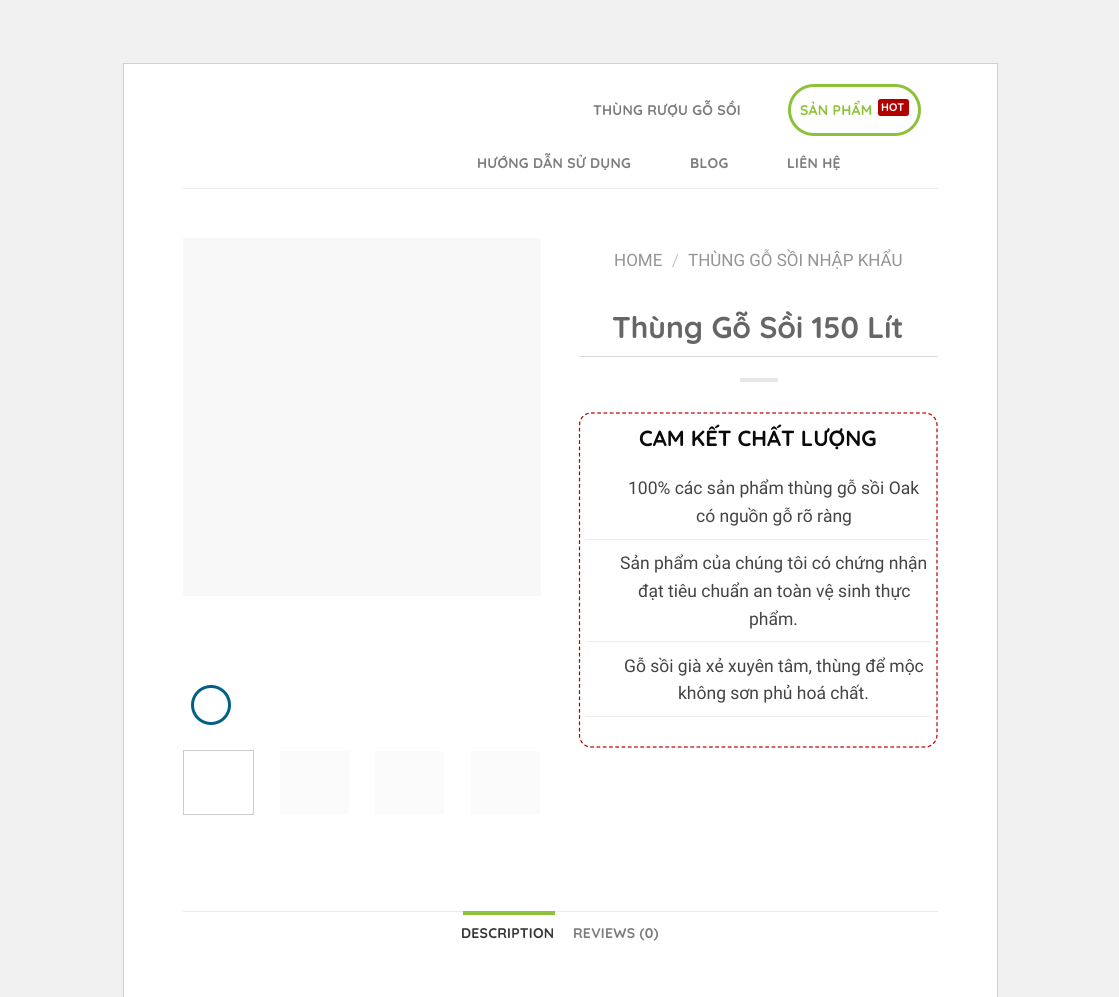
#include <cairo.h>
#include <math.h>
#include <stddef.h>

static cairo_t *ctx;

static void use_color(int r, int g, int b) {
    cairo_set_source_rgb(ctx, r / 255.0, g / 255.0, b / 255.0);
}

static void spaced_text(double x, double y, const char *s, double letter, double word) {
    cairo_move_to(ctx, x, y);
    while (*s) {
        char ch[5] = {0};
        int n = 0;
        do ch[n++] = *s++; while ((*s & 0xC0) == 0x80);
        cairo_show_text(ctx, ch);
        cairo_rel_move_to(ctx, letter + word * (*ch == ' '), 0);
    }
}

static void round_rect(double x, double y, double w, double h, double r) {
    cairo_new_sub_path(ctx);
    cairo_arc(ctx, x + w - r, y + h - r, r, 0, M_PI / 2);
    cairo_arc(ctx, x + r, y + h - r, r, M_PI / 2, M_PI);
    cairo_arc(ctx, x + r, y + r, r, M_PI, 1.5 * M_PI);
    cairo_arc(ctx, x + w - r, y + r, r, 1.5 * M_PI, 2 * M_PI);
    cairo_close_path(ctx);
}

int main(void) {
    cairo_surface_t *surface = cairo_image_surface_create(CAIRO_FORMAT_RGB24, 1119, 997);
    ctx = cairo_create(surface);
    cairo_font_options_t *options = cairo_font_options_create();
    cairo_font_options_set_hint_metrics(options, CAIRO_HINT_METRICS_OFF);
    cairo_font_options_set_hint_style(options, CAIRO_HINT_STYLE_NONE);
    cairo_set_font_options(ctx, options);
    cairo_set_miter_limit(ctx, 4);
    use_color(241, 241, 241);
    cairo_paint(ctx);
    use_color(255, 255, 255);
    cairo_rectangle(ctx, 123.5, 63.5, 874, 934);
    cairo_fill_preserve(ctx);
    use_color(204, 208, 212);
    cairo_set_line_width(ctx, 1);
    cairo_stroke(ctx);
    cairo_select_font_face(ctx, "Quicksand", CAIRO_FONT_SLANT_NORMAL, CAIRO_FONT_WEIGHT_BOLD);
    cairo_set_font_size(ctx, 14);
    use_color(125, 125, 125);
    spaced_text(593, 115, "THÙNG RƯỢU GỖ SỒI", 0.25, 0);
    round_rect(789.5, 85.5, 130, 49, 24.5);
    use_color(141, 193, 59);
    cairo_set_line_width(ctx, 3);
    cairo_stroke(ctx);
    spaced_text(800, 115, "SẢN PHẨM", 0.25, 0);
    use_color(178, 0, 0);
    round_rect(878, 99, 31, 17, 2.5);
    cairo_fill(ctx);
    cairo_set_font_size(ctx, 11);
    use_color(255, 255, 255);
    cairo_move_to(ctx, 881, 111);
    cairo_show_text(ctx, "HOT");
    cairo_set_font_size(ctx, 14);
    use_color(125, 125, 125);
    spaced_text(477, 168, "HƯỚNG DẪN SỬ DỤNG", 0.25, 0);
    spaced_text(690, 168, "BLOG", 0.25, 0);
    spaced_text(787, 168, "LIÊN HỆ", 0.25, 0);
    use_color(236, 236, 236);
    cairo_rectangle(ctx, 183, 188, 755, 1);
    cairo_fill(ctx);
    use_color(248, 248, 248);
    cairo_rectangle(ctx, 183, 238, 358, 358);
    cairo_fill(ctx);
    cairo_arc(ctx, 211, 705, 18.5, 0, 2 * M_PI);
    use_color(1, 96, 135);
    cairo_stroke(ctx);
    cairo_rectangle(ctx, 183.5, 750.5, 70, 64);
    use_color(204, 204, 204);
    cairo_set_line_width(ctx, 1);
    cairo_stroke(ctx);
    use_color(251, 251, 251);
    cairo_rectangle(ctx, 280, 751, 69, 63);
    cairo_fill(ctx);
    cairo_rectangle(ctx, 375, 751, 69, 63);
    cairo_fill(ctx);
    cairo_rectangle(ctx, 471, 751, 69, 63);
    cairo_fill(ctx);
    cairo_select_font_face(ctx, "Roboto", CAIRO_FONT_SLANT_NORMAL, CAIRO_FONT_WEIGHT_NORMAL);
    cairo_set_font_size(ctx, 17);
    use_color(148, 148, 148);
    cairo_move_to(ctx, 614, 266);
    cairo_show_text(ctx, "HOME");
    cairo_select_font_face(ctx, "Roboto Light", CAIRO_FONT_SLANT_NORMAL, CAIRO_FONT_WEIGHT_NORMAL);
    use_color(178, 178, 178);
    cairo_move_to(ctx, 672, 266);
    cairo_show_text(ctx, "/");
    cairo_select_font_face(ctx, "Roboto", CAIRO_FONT_SLANT_NORMAL, CAIRO_FONT_WEIGHT_NORMAL);
    use_color(148, 148, 148);
    cairo_move_to(ctx, 688, 266);
    cairo_show_text(ctx, "THÙNG GỖ SỒI NHẬP KHẨU");
    use_color(218, 218, 218);
    cairo_rectangle(ctx, 579, 356, 359, 1);
    cairo_fill(ctx);
    cairo_select_font_face(ctx, "Quicksand", CAIRO_FONT_SLANT_NORMAL, CAIRO_FONT_WEIGHT_BOLD);
    cairo_set_font_size(ctx, 30);
    use_color(102, 102, 102);
    cairo_move_to(ctx, 612, 338);
    cairo_show_text(ctx, "Thùng Gỗ Sồi 150 Lít");
    use_color(230, 230, 230);
    cairo_rectangle(ctx, 740, 378, 38, 4);
    cairo_fill(ctx);
    cairo_new_path(ctx);
    cairo_move_to(ctx, 591, 413);
    cairo_line_to(ctx, 925, 413);
    cairo_curve_to(ctx, 931.5, 413, 937, 418.5, 937, 425);
    cairo_line_to(ctx, 937, 735);
    cairo_curve_to(ctx, 937, 741.5, 931.5, 747, 925, 747);
    cairo_line_to(ctx, 591, 747);
    cairo_curve_to(ctx, 584.5, 747, 579.5, 741.5, 579.5, 735);
    cairo_line_to(ctx, 579.5, 425);
    cairo_curve_to(ctx, 579.5, 418.5, 584.5, 413, 591, 413);
    cairo_close_path(ctx);
    use_color(178, 0, 0);
    cairo_set_line_width(ctx, 1.2);
    cairo_set_dash(ctx, (double[]){3.75, 2.5}, 2, 0);
    cairo_stroke(ctx);
    cairo_set_font_size(ctx, 21.9);
    use_color(10, 10, 10);
    cairo_move_to(ctx, 639, 446);
    cairo_show_text(ctx, "CAM KẾT CHẤT LƯỢNG");
    use_color(236, 236, 236);
    cairo_rectangle(ctx, 586, 539, 344, 1);
    cairo_fill(ctx);
    cairo_select_font_face(ctx, "Roboto", CAIRO_FONT_SLANT_NORMAL, CAIRO_FONT_WEIGHT_NORMAL);
    cairo_set_font_size(ctx, 17.5);
    use_color(68, 68, 68);
    cairo_move_to(ctx, 628, 494);
    cairo_show_text(ctx, "100% các sản phẩm thùng gỗ sồi Oak");
    cairo_move_to(ctx, 696, 522);
    cairo_show_text(ctx, "có nguồn gỗ rõ ràng");
    use_color(236, 236, 236);
    cairo_rectangle(ctx, 586, 641, 344, 1);
    cairo_fill(ctx);
    use_color(68, 68, 68);
    cairo_move_to(ctx, 620, 569);
    cairo_show_text(ctx, "Sản phẩm của chúng tôi có chứng nhận");
    cairo_move_to(ctx, 638, 597);
    cairo_show_text(ctx, "đạt tiêu chuẩn an toàn vệ sinh thực");
    cairo_move_to(ctx, 749, 625);
    cairo_show_text(ctx, "phẩm.");
    use_color(236, 236, 236);
    cairo_rectangle(ctx, 586, 716, 344, 1);
    cairo_fill(ctx);
    use_color(68, 68, 68);
    cairo_move_to(ctx, 624, 672);
    cairo_show_text(ctx, "Gỗ sồi già xẻ xuyên tâm, thùng để mộc");
    cairo_move_to(ctx, 678, 699);
    cairo_show_text(ctx, "không sơn phủ hoá chất.");
    use_color(236, 236, 236);
    cairo_rectangle(ctx, 183, 911, 755, 1);
    cairo_fill(ctx);
    use_color(141, 193, 59);
    cairo_rectangle(ctx, 463, 911, 92, 4);
    cairo_fill(ctx);
    cairo_select_font_face(ctx, "Quicksand", CAIRO_FONT_SLANT_NORMAL, CAIRO_FONT_WEIGHT_BOLD);
    cairo_set_font_size(ctx, 14);
    use_color(54, 54, 54);
    spaced_text(461, 938, "DESCRIPTION", 0.25, 0);
    use_color(125, 125, 125);
    spaced_text(573, 938, "REVIEWS (0)", 0.25, 0);
    cairo_surface_write_to_png(surface, "result.png");
    cairo_font_options_destroy(options);
    cairo_destroy(ctx);
    cairo_surface_destroy(surface);
    return 0;
}
